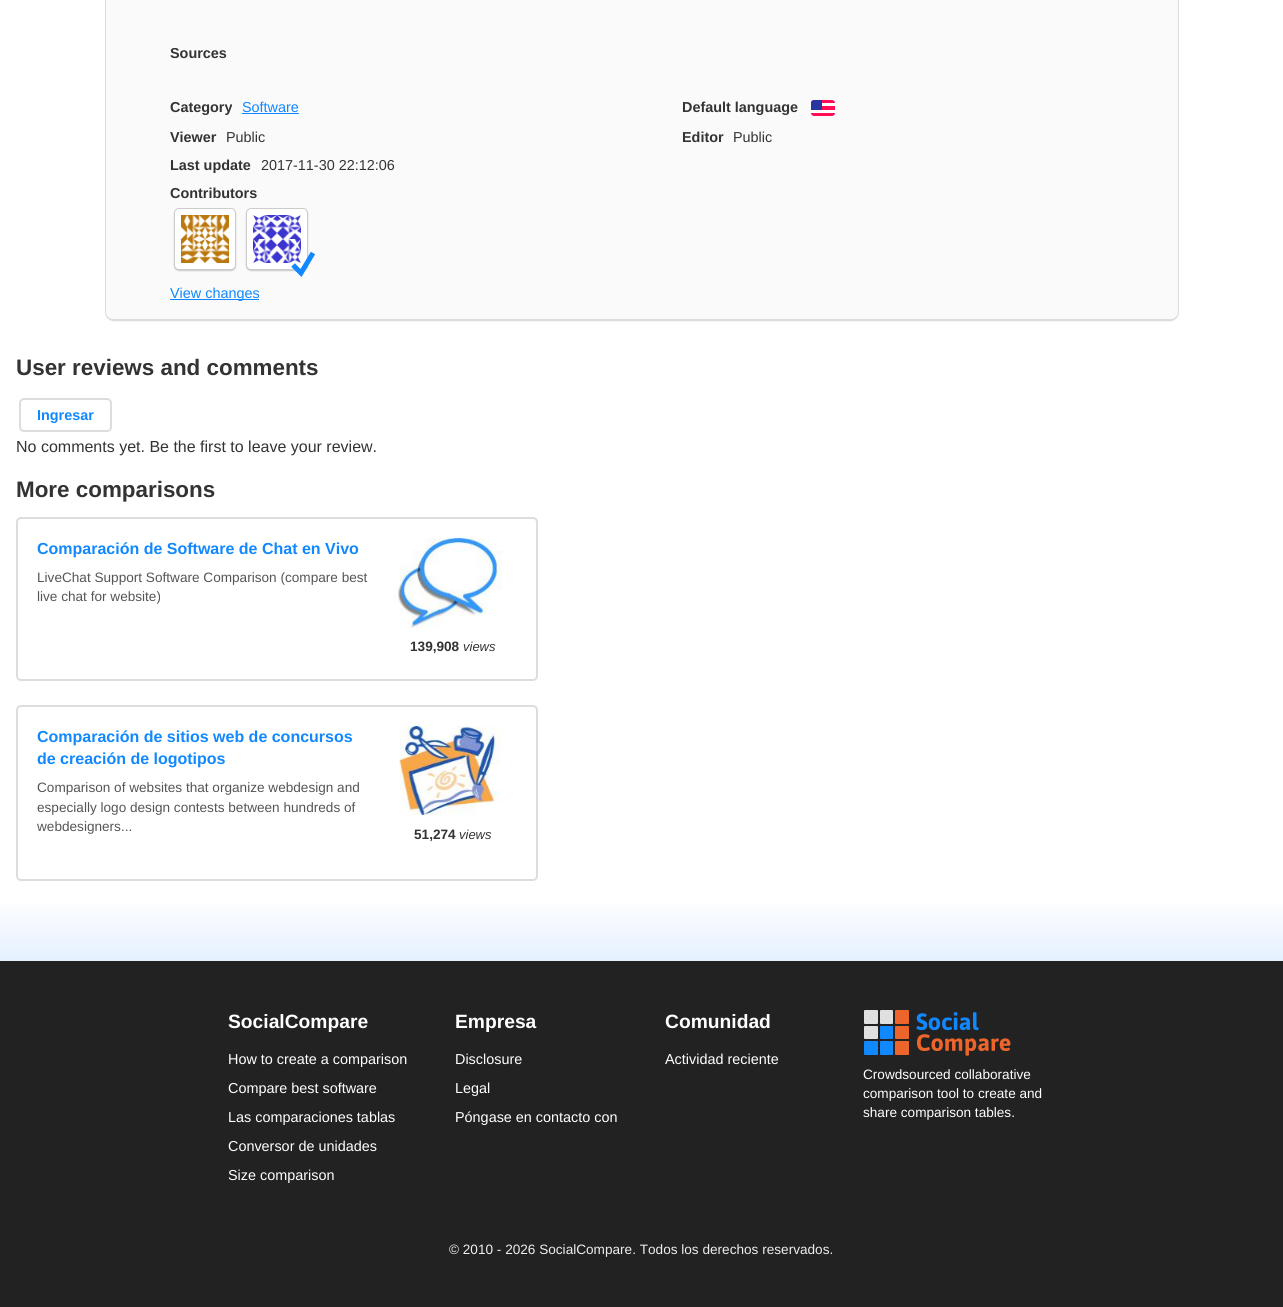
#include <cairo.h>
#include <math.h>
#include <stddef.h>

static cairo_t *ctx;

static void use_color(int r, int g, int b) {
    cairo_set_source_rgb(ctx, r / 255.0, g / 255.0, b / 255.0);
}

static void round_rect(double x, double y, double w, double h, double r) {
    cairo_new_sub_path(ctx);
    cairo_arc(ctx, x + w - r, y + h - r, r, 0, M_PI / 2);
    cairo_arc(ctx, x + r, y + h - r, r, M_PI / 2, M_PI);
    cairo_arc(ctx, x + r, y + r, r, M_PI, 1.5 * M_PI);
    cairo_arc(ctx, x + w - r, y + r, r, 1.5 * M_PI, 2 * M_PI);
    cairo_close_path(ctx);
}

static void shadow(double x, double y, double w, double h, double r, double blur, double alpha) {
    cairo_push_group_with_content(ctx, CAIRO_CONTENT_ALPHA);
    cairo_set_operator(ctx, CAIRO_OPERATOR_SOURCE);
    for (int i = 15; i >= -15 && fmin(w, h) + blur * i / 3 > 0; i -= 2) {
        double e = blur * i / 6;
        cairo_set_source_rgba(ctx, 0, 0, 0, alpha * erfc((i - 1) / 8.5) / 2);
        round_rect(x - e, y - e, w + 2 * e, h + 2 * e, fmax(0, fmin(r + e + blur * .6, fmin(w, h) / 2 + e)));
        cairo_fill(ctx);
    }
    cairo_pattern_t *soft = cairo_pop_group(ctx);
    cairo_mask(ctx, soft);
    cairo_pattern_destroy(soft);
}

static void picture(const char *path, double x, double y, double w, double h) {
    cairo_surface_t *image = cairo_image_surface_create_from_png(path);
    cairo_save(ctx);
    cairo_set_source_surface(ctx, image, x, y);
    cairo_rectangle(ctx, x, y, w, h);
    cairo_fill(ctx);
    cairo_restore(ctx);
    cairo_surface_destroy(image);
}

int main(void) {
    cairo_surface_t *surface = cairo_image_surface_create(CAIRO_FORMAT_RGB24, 1283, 1307);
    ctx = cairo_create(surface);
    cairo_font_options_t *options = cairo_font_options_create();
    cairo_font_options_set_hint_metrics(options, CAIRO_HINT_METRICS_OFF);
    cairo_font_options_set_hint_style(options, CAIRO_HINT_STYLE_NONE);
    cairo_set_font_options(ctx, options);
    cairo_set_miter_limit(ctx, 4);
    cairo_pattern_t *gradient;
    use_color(255, 255, 255);
    cairo_paint(ctx);
    use_color(153, 153, 153);
    shadow(107, -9, 1070, 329, 6, 1, 1);
    use_color(250, 250, 250);
    round_rect(105.5, -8.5, 1073, 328, 7.5);
    cairo_fill_preserve(ctx);
    use_color(221, 221, 221);
    cairo_set_line_width(ctx, 1);
    cairo_stroke(ctx);
    cairo_select_font_face(ctx, "Liberation Sans", CAIRO_FONT_SLANT_NORMAL, CAIRO_FONT_WEIGHT_BOLD);
    cairo_set_font_size(ctx, 14.4);
    use_color(51, 51, 51);
    cairo_move_to(ctx, 170, 58);
    cairo_show_text(ctx, "Sources");
    cairo_move_to(ctx, 170, 112);
    cairo_show_text(ctx, "Category");
    cairo_select_font_face(ctx, "Liberation Sans", CAIRO_FONT_SLANT_NORMAL, CAIRO_FONT_WEIGHT_NORMAL);
    use_color(17, 136, 255);
    cairo_move_to(ctx, 242, 112);
    cairo_show_text(ctx, "Software");
    cairo_rectangle(ctx, 242, 113, 57, 1);
    cairo_fill(ctx);
    cairo_select_font_face(ctx, "Liberation Sans", CAIRO_FONT_SLANT_NORMAL, CAIRO_FONT_WEIGHT_BOLD);
    use_color(51, 51, 51);
    cairo_move_to(ctx, 682, 112);
    cairo_show_text(ctx, "Default language");
    use_color(255, 14, 86);
    round_rect(811, 100, 24, 16, 3);
    cairo_fill(ctx);
    use_color(255, 255, 255);
    cairo_rectangle(ctx, 822, 103, 13, 3);
    cairo_fill(ctx);
    cairo_rectangle(ctx, 811, 110, 24, 3);
    cairo_fill(ctx);
    use_color(42, 54, 159);
    cairo_new_path(ctx);
    cairo_move_to(ctx, 814, 100);
    cairo_line_to(ctx, 822, 100);
    cairo_line_to(ctx, 822, 110);
    cairo_line_to(ctx, 811, 110);
    cairo_line_to(ctx, 811, 103);
    cairo_curve_to(ctx, 811, 101.5, 812.5, 100, 814, 100);
    cairo_close_path(ctx);
    cairo_fill(ctx);
    use_color(51, 51, 51);
    cairo_move_to(ctx, 170, 142);
    cairo_show_text(ctx, "Viewer");
    cairo_select_font_face(ctx, "Liberation Sans", CAIRO_FONT_SLANT_NORMAL, CAIRO_FONT_WEIGHT_NORMAL);
    cairo_move_to(ctx, 226, 142);
    cairo_show_text(ctx, "Public");
    cairo_select_font_face(ctx, "Liberation Sans", CAIRO_FONT_SLANT_NORMAL, CAIRO_FONT_WEIGHT_BOLD);
    cairo_move_to(ctx, 682, 142);
    cairo_show_text(ctx, "Editor");
    cairo_select_font_face(ctx, "Liberation Sans", CAIRO_FONT_SLANT_NORMAL, CAIRO_FONT_WEIGHT_NORMAL);
    cairo_move_to(ctx, 733, 142);
    cairo_show_text(ctx, "Public");
    cairo_select_font_face(ctx, "Liberation Sans", CAIRO_FONT_SLANT_NORMAL, CAIRO_FONT_WEIGHT_BOLD);
    cairo_move_to(ctx, 170, 170);
    cairo_show_text(ctx, "Last update");
    cairo_select_font_face(ctx, "Liberation Sans", CAIRO_FONT_SLANT_NORMAL, CAIRO_FONT_WEIGHT_NORMAL);
    cairo_move_to(ctx, 261, 170);
    cairo_show_text(ctx, "2017-11-30 22:12:06");
    cairo_select_font_face(ctx, "Liberation Sans", CAIRO_FONT_SLANT_NORMAL, CAIRO_FONT_WEIGHT_BOLD);
    cairo_move_to(ctx, 170, 198);
    cairo_show_text(ctx, "Contributors");
    use_color(204, 204, 204);
    shadow(174, 209, 62, 62, 5, 0.5, 1);
    use_color(255, 255, 255);
    round_rect(174.5, 208.5, 61, 61, 4.5);
    cairo_fill_preserve(ctx);
    use_color(204, 204, 204);
    cairo_stroke(ctx);
    picture("img1.png", 181, 215, 48, 48);
    use_color(204, 204, 204);
    shadow(246, 209, 62, 62, 5, 0.5, 1);
    use_color(255, 255, 255);
    round_rect(246.5, 208.5, 61, 61, 4.5);
    cairo_fill_preserve(ctx);
    use_color(204, 204, 204);
    cairo_stroke(ctx);
    picture("img2.png", 253, 215, 48, 48);
    cairo_new_path(ctx);
    cairo_move_to(ctx, 293, 265);
    cairo_line_to(ctx, 301, 273);
    cairo_line_to(ctx, 313, 253);
    use_color(17, 136, 255);
    cairo_set_line_width(ctx, 5);
    cairo_stroke(ctx);
    cairo_rectangle(ctx, 170, 299, 89, 1);
    cairo_fill(ctx);
    cairo_select_font_face(ctx, "Liberation Sans", CAIRO_FONT_SLANT_NORMAL, CAIRO_FONT_WEIGHT_NORMAL);
    cairo_move_to(ctx, 170, 298);
    cairo_show_text(ctx, "View changes");
    cairo_select_font_face(ctx, "Liberation Sans", CAIRO_FONT_SLANT_NORMAL, CAIRO_FONT_WEIGHT_BOLD);
    cairo_set_font_size(ctx, 22.4);
    use_color(51, 51, 51);
    cairo_move_to(ctx, 16, 375);
    cairo_show_text(ctx, "User reviews and comments");
    round_rect(20, 399, 91, 32, 4);
    use_color(221, 221, 221);
    cairo_set_line_width(ctx, 2);
    cairo_stroke(ctx);
    cairo_set_font_size(ctx, 14.4);
    use_color(17, 136, 255);
    cairo_move_to(ctx, 37, 420);
    cairo_show_text(ctx, "Ingresar");
    cairo_select_font_face(ctx, "Liberation Sans", CAIRO_FONT_SLANT_NORMAL, CAIRO_FONT_WEIGHT_NORMAL);
    cairo_set_font_size(ctx, 16);
    use_color(51, 51, 51);
    cairo_move_to(ctx, 16, 452);
    cairo_show_text(ctx, "No comments yet. Be the first to leave your review.");
    cairo_select_font_face(ctx, "Liberation Sans", CAIRO_FONT_SLANT_NORMAL, CAIRO_FONT_WEIGHT_BOLD);
    cairo_set_font_size(ctx, 22.4);
    cairo_move_to(ctx, 16, 497);
    cairo_show_text(ctx, "More comparisons");
    round_rect(17, 518, 520, 162, 4);
    use_color(221, 221, 221);
    cairo_stroke(ctx);
    cairo_set_font_size(ctx, 16);
    use_color(17, 136, 255);
    cairo_move_to(ctx, 37, 554);
    cairo_show_text(ctx, "Comparación de Software de Chat en Vivo");
    cairo_select_font_face(ctx, "Liberation Sans", CAIRO_FONT_SLANT_NORMAL, CAIRO_FONT_WEIGHT_NORMAL);
    cairo_set_font_size(ctx, 13.6);
    use_color(85, 85, 85);
    cairo_move_to(ctx, 37, 582);
    cairo_show_text(ctx, "LiveChat Support Software Comparison (compare best");
    cairo_move_to(ctx, 37, 601);
    cairo_show_text(ctx, "live chat for website)");
    picture("img3.png", 394, 538, 109, 90);
    cairo_select_font_face(ctx, "Liberation Sans", CAIRO_FONT_SLANT_NORMAL, CAIRO_FONT_WEIGHT_BOLD);
    use_color(51, 51, 51);
    cairo_move_to(ctx, 410, 651);
    cairo_show_text(ctx, "139,908");
    cairo_select_font_face(ctx, "Liberation Sans", CAIRO_FONT_SLANT_ITALIC, CAIRO_FONT_WEIGHT_NORMAL);
    cairo_set_font_size(ctx, 13);
    cairo_move_to(ctx, 463, 651);
    cairo_show_text(ctx, "views");
    round_rect(17, 706, 520, 174, 4);
    use_color(221, 221, 221);
    cairo_stroke(ctx);
    cairo_select_font_face(ctx, "Liberation Sans", CAIRO_FONT_SLANT_NORMAL, CAIRO_FONT_WEIGHT_BOLD);
    cairo_set_font_size(ctx, 16);
    use_color(17, 136, 255);
    cairo_move_to(ctx, 37, 742);
    cairo_show_text(ctx, "Comparación de sitios web de concursos");
    cairo_move_to(ctx, 37, 764);
    cairo_show_text(ctx, "de creación de logotipos");
    cairo_select_font_face(ctx, "Liberation Sans", CAIRO_FONT_SLANT_NORMAL, CAIRO_FONT_WEIGHT_NORMAL);
    cairo_set_font_size(ctx, 13.6);
    use_color(85, 85, 85);
    cairo_move_to(ctx, 37, 792);
    cairo_show_text(ctx, "Comparison of websites that organize webdesign and");
    cairo_move_to(ctx, 37, 812);
    cairo_show_text(ctx, "especially logo design contests between hundreds of");
    cairo_move_to(ctx, 37, 831);
    cairo_show_text(ctx, "webdesigners...");
    picture("img4.png", 399, 726, 103, 89);
    cairo_select_font_face(ctx, "Liberation Sans", CAIRO_FONT_SLANT_NORMAL, CAIRO_FONT_WEIGHT_BOLD);
    use_color(51, 51, 51);
    cairo_move_to(ctx, 414, 839);
    cairo_show_text(ctx, "51,274");
    cairo_select_font_face(ctx, "Liberation Sans", CAIRO_FONT_SLANT_ITALIC, CAIRO_FONT_WEIGHT_NORMAL);
    cairo_set_font_size(ctx, 13);
    cairo_move_to(ctx, 459, 839);
    cairo_show_text(ctx, "views");
    use_color(34, 34, 34);
    cairo_rectangle(ctx, 0, 961, 1283, 346);
    cairo_fill(ctx);
    gradient = cairo_pattern_create_linear(642, 961, 642, 897);
    cairo_pattern_add_color_stop_rgba(gradient, 0, 0.898, 0.941, 1, 1);
    cairo_pattern_add_color_stop_rgba(gradient, 1, 1, 1, 1, 1);
    cairo_set_source(ctx, gradient);
    cairo_pattern_destroy(gradient);
    cairo_rectangle(ctx, 0, 903, 1283, 58);
    cairo_fill(ctx);
    cairo_select_font_face(ctx, "Liberation Sans", CAIRO_FONT_SLANT_NORMAL, CAIRO_FONT_WEIGHT_BOLD);
    cairo_set_font_size(ctx, 19.25);
    use_color(255, 255, 255);
    cairo_move_to(ctx, 228, 1028);
    cairo_show_text(ctx, "SocialCompare");
    cairo_select_font_face(ctx, "Liberation Sans", CAIRO_FONT_SLANT_NORMAL, CAIRO_FONT_WEIGHT_NORMAL);
    cairo_set_font_size(ctx, 14.4);
    cairo_move_to(ctx, 228, 1064);
    cairo_show_text(ctx, "How to create a comparison");
    cairo_move_to(ctx, 228, 1093);
    cairo_show_text(ctx, "Compare best software");
    cairo_move_to(ctx, 228, 1122);
    cairo_show_text(ctx, "Las comparaciones tablas");
    cairo_move_to(ctx, 228, 1151);
    cairo_show_text(ctx, "Conversor de unidades");
    cairo_move_to(ctx, 228, 1180);
    cairo_show_text(ctx, "Size comparison");
    cairo_select_font_face(ctx, "Liberation Sans", CAIRO_FONT_SLANT_NORMAL, CAIRO_FONT_WEIGHT_BOLD);
    cairo_set_font_size(ctx, 19.25);
    cairo_move_to(ctx, 455, 1028);
    cairo_show_text(ctx, "Empresa");
    cairo_select_font_face(ctx, "Liberation Sans", CAIRO_FONT_SLANT_NORMAL, CAIRO_FONT_WEIGHT_NORMAL);
    cairo_set_font_size(ctx, 14.4);
    cairo_move_to(ctx, 455, 1064);
    cairo_show_text(ctx, "Disclosure");
    cairo_move_to(ctx, 455, 1093);
    cairo_show_text(ctx, "Legal");
    cairo_move_to(ctx, 455, 1122);
    cairo_show_text(ctx, "Póngase en contacto con");
    cairo_select_font_face(ctx, "Liberation Sans", CAIRO_FONT_SLANT_NORMAL, CAIRO_FONT_WEIGHT_BOLD);
    cairo_set_font_size(ctx, 19.25);
    cairo_move_to(ctx, 665, 1028);
    cairo_show_text(ctx, "Comunidad");
    cairo_select_font_face(ctx, "Liberation Sans", CAIRO_FONT_SLANT_NORMAL, CAIRO_FONT_WEIGHT_NORMAL);
    cairo_set_font_size(ctx, 14.4);
    cairo_move_to(ctx, 665, 1064);
    cairo_show_text(ctx, "Actividad reciente");
    picture("img5.png", 864, 1010, 147, 46);
    cairo_set_font_size(ctx, 13.6);
    cairo_move_to(ctx, 863, 1079);
    cairo_show_text(ctx, "Crowdsourced collaborative");
    cairo_move_to(ctx, 863, 1098);
    cairo_show_text(ctx, "comparison tool to create and");
    cairo_move_to(ctx, 863, 1117);
    cairo_show_text(ctx, "share comparison tables.");
    use_color(238, 238, 238);
    cairo_move_to(ctx, 449, 1254);
    cairo_show_text(ctx, "© 2010 - 2026 SocialCompare. Todos los derechos reservados.");
    cairo_surface_write_to_png(surface, "result.png");
    cairo_font_options_destroy(options);
    cairo_destroy(ctx);
    cairo_surface_destroy(surface);
    return 0;
}
